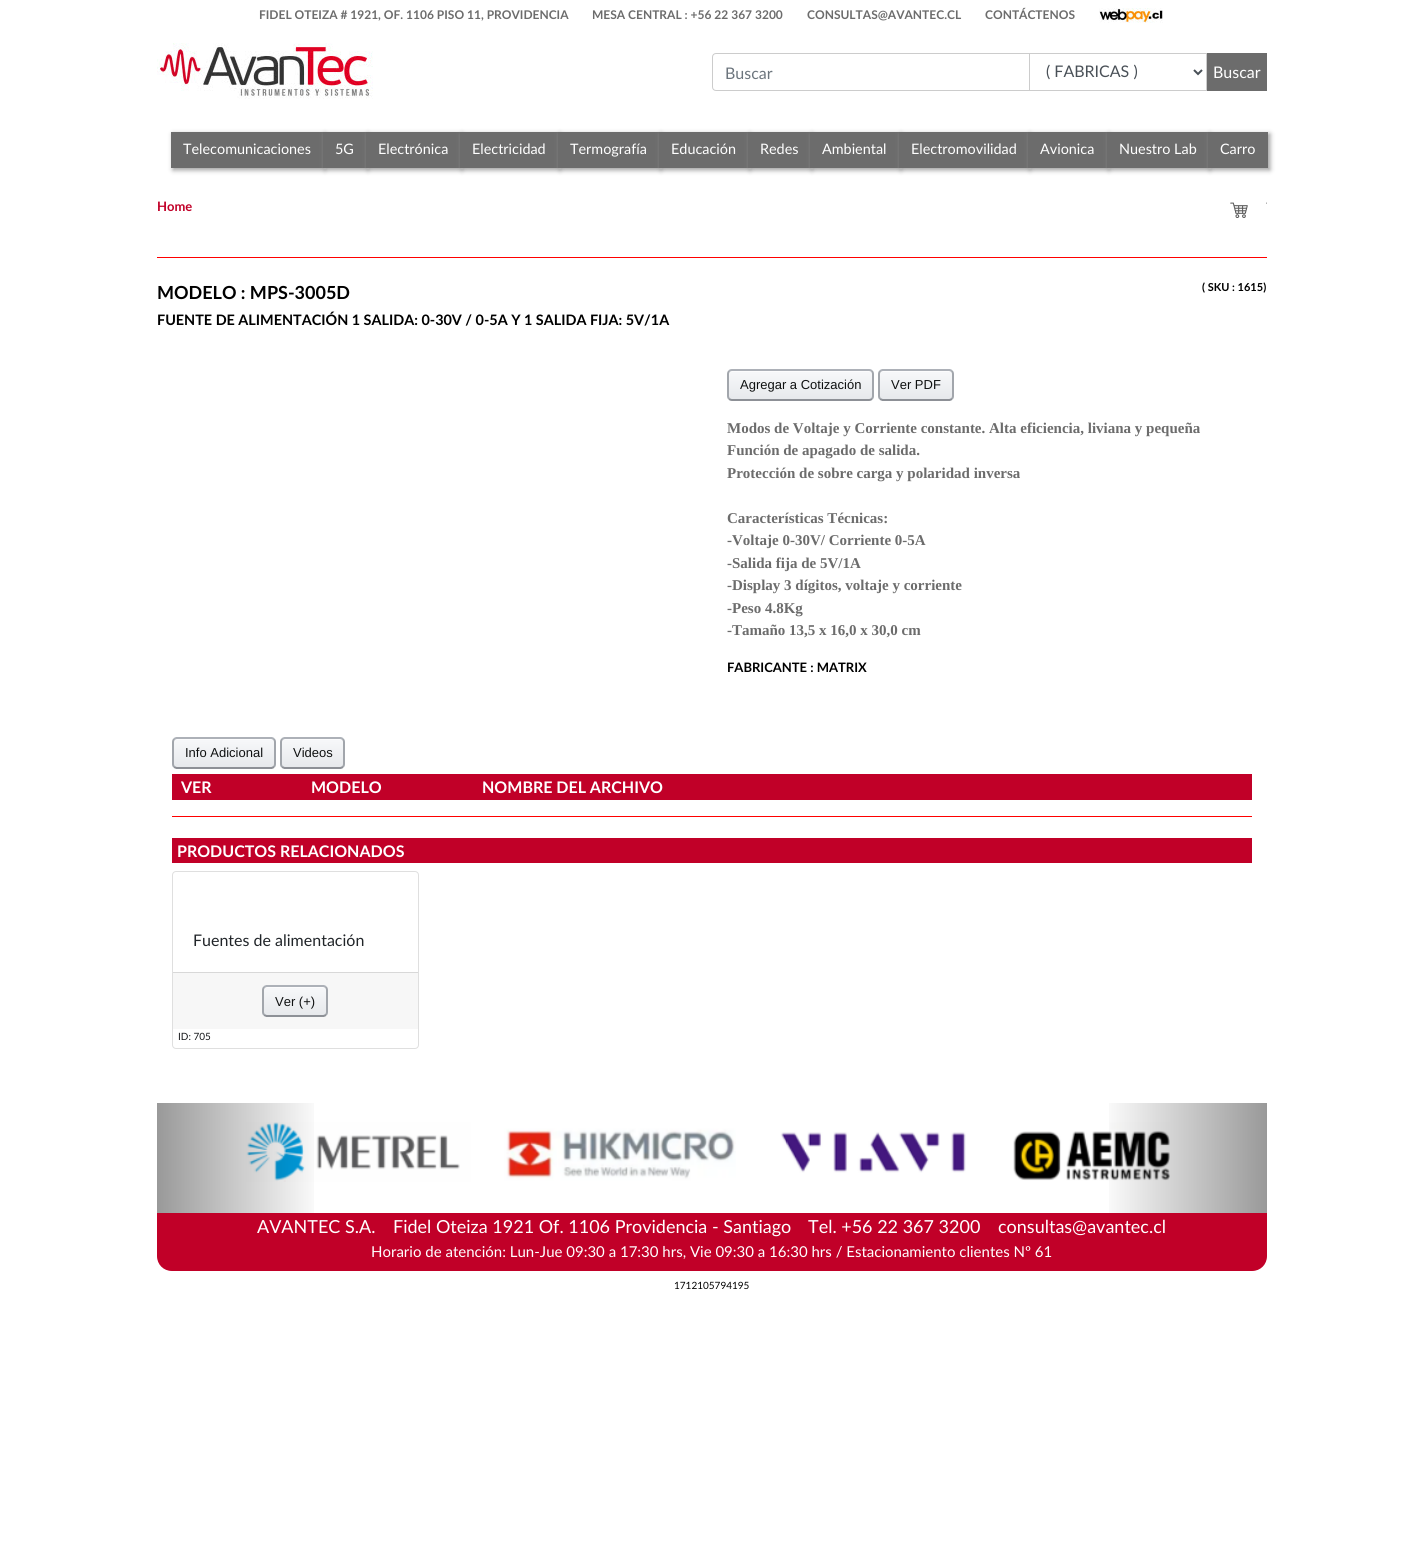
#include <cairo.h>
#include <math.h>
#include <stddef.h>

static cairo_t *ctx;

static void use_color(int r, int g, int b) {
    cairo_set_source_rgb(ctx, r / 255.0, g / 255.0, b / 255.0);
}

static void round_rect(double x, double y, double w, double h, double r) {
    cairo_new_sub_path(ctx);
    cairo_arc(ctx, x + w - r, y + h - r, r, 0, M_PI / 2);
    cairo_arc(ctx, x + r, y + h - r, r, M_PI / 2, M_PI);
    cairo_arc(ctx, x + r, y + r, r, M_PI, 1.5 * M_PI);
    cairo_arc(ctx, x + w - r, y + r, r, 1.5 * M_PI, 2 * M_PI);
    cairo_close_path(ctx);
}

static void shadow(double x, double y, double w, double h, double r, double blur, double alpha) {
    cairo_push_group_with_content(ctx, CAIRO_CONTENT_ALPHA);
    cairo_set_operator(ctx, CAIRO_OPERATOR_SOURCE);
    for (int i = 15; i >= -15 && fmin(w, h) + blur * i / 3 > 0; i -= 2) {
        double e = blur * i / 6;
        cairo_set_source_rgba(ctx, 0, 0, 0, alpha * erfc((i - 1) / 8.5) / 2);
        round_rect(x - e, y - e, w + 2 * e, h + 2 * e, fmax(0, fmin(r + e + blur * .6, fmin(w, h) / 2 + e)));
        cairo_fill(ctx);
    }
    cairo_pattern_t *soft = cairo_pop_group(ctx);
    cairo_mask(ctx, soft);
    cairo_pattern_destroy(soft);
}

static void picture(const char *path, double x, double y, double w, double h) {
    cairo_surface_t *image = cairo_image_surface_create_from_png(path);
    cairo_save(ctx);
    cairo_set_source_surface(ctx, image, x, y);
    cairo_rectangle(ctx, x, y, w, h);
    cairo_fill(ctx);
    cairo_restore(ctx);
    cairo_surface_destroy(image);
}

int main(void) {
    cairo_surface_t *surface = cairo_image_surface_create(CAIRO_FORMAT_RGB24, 1423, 1547);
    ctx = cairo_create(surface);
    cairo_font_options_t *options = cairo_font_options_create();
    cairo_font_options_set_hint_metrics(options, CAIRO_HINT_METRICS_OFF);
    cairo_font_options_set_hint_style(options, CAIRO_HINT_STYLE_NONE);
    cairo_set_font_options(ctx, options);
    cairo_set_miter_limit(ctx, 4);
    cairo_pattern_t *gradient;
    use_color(255, 255, 255);
    cairo_paint(ctx);
    cairo_select_font_face(ctx, "Lato", CAIRO_FONT_SLANT_NORMAL, CAIRO_FONT_WEIGHT_BOLD);
    cairo_set_font_size(ctx, 12);
    use_color(108, 108, 108);
    cairo_move_to(ctx, 259, 19);
    cairo_show_text(ctx, "FIDEL OTEIZA # 1921, OF. 1106 PISO 11, PROVIDENCIA");
    cairo_move_to(ctx, 592, 19);
    cairo_show_text(ctx, "MESA CENTRAL : +56 22 367 3200");
    cairo_move_to(ctx, 807, 19);
    cairo_show_text(ctx, "CONSULTAS@AVANTEC.CL");
    cairo_move_to(ctx, 985, 19);
    cairo_show_text(ctx, "CONTÁCTENOS");
    picture("img1.png", 1099, 8, 64, 15);
    picture("img2.png", 157, 43, 216, 56);
    cairo_new_path(ctx);
    cairo_move_to(ctx, 716, 53.5);
    cairo_line_to(ctx, 1029.5, 53.5);
    cairo_line_to(ctx, 1029.5, 90.5);
    cairo_line_to(ctx, 716, 90.5);
    cairo_curve_to(ctx, 714, 90.5, 712.5, 89, 712.5, 87);
    cairo_line_to(ctx, 712.5, 57);
    cairo_curve_to(ctx, 712.5, 55, 714, 53.5, 716, 53.5);
    cairo_close_path(ctx);
    use_color(204, 204, 204);
    cairo_set_line_width(ctx, 1);
    cairo_stroke(ctx);
    cairo_select_font_face(ctx, "Lato", CAIRO_FONT_SLANT_NORMAL, CAIRO_FONT_WEIGHT_NORMAL);
    cairo_set_font_size(ctx, 16);
    use_color(108, 117, 125);
    cairo_move_to(ctx, 725, 79);
    cairo_show_text(ctx, "Buscar");
    cairo_rectangle(ctx, 1029.5, 53.5, 177, 37);
    use_color(204, 204, 204);
    cairo_stroke(ctx);
    cairo_new_path(ctx);
    cairo_move_to(ctx, 1194, 70);
    cairo_line_to(ctx, 1198, 74);
    cairo_line_to(ctx, 1202, 70);
    use_color(73, 80, 87);
    cairo_set_line_width(ctx, 2);
    cairo_stroke(ctx);
    cairo_move_to(ctx, 1046, 77);
    cairo_show_text(ctx, "( FABRICAS )");
    use_color(108, 108, 108);
    cairo_rectangle(ctx, 1207, 53, 60, 38);
    cairo_fill(ctx);
    use_color(255, 255, 255);
    cairo_move_to(ctx, 1213, 78);
    cairo_show_text(ctx, "Buscar");
    use_color(153, 153, 153);
    shadow(173, 134, 152, 36, 0, 2.5, 1);
    use_color(108, 108, 108);
    cairo_rectangle(ctx, 171, 132, 152, 36);
    cairo_fill(ctx);
    cairo_set_font_size(ctx, 14.4);
    use_color(255, 255, 255);
    cairo_move_to(ctx, 183, 154);
    cairo_show_text(ctx, "Telecomunicaciones");
    use_color(153, 153, 153);
    shadow(325, 134, 43, 36, 0, 2.5, 1);
    use_color(108, 108, 108);
    cairo_rectangle(ctx, 323, 132, 43, 36);
    cairo_fill(ctx);
    use_color(255, 255, 255);
    cairo_move_to(ctx, 335, 154);
    cairo_show_text(ctx, "5G");
    use_color(153, 153, 153);
    shadow(368, 134, 94, 36, 0, 2.5, 1);
    use_color(108, 108, 108);
    cairo_rectangle(ctx, 366, 132, 94, 36);
    cairo_fill(ctx);
    use_color(255, 255, 255);
    cairo_move_to(ctx, 378, 154);
    cairo_show_text(ctx, "Electrónica");
    use_color(153, 153, 153);
    shadow(462, 134, 98, 36, 0, 2.5, 1);
    use_color(108, 108, 108);
    cairo_rectangle(ctx, 460, 132, 98, 36);
    cairo_fill(ctx);
    use_color(255, 255, 255);
    cairo_move_to(ctx, 472, 154);
    cairo_show_text(ctx, "Electricidad");
    use_color(153, 153, 153);
    shadow(560, 134, 101, 36, 0, 2.5, 1);
    use_color(108, 108, 108);
    cairo_rectangle(ctx, 558, 132, 101, 36);
    cairo_fill(ctx);
    use_color(255, 255, 255);
    cairo_move_to(ctx, 570, 154);
    cairo_show_text(ctx, "Termografía");
    use_color(153, 153, 153);
    shadow(661, 134, 89, 36, 0, 2.5, 1);
    use_color(108, 108, 108);
    cairo_rectangle(ctx, 659, 132, 89, 36);
    cairo_fill(ctx);
    use_color(255, 255, 255);
    cairo_move_to(ctx, 671, 154);
    cairo_show_text(ctx, "Educación");
    use_color(153, 153, 153);
    shadow(750, 134, 62, 36, 0, 2.5, 1);
    use_color(108, 108, 108);
    cairo_rectangle(ctx, 748, 132, 62, 36);
    cairo_fill(ctx);
    use_color(255, 255, 255);
    cairo_move_to(ctx, 760, 154);
    cairo_show_text(ctx, "Redes");
    use_color(153, 153, 153);
    shadow(812, 134, 89, 36, 0, 2.5, 1);
    use_color(108, 108, 108);
    cairo_rectangle(ctx, 810, 132, 89, 36);
    cairo_fill(ctx);
    use_color(255, 255, 255);
    cairo_move_to(ctx, 822, 154);
    cairo_show_text(ctx, "Ambiental");
    use_color(153, 153, 153);
    shadow(901, 134, 129, 36, 0, 2.5, 1);
    use_color(108, 108, 108);
    cairo_rectangle(ctx, 899, 132, 129, 36);
    cairo_fill(ctx);
    use_color(255, 255, 255);
    cairo_move_to(ctx, 911, 154);
    cairo_show_text(ctx, "Electromovilidad");
    use_color(153, 153, 153);
    shadow(1030, 134, 79, 36, 0, 2.5, 1);
    use_color(108, 108, 108);
    cairo_rectangle(ctx, 1028, 132, 79, 36);
    cairo_fill(ctx);
    use_color(255, 255, 255);
    cairo_move_to(ctx, 1040, 154);
    cairo_show_text(ctx, "Avionica");
    use_color(153, 153, 153);
    shadow(1109, 134, 101, 36, 0, 2.5, 1);
    use_color(108, 108, 108);
    cairo_rectangle(ctx, 1107, 132, 101, 36);
    cairo_fill(ctx);
    use_color(255, 255, 255);
    cairo_move_to(ctx, 1119, 154);
    cairo_show_text(ctx, "Nuestro Lab");
    use_color(153, 153, 153);
    shadow(1210, 134, 60, 36, 0, 2.5, 1);
    use_color(108, 108, 108);
    cairo_rectangle(ctx, 1208, 132, 60, 36);
    cairo_fill(ctx);
    use_color(255, 255, 255);
    cairo_move_to(ctx, 1220, 154);
    cairo_show_text(ctx, "Carro");
    cairo_select_font_face(ctx, "Lato", CAIRO_FONT_SLANT_NORMAL, CAIRO_FONT_WEIGHT_BOLD);
    cairo_set_font_size(ctx, 13);
    use_color(193, 0, 40);
    cairo_move_to(ctx, 157, 211);
    cairo_show_text(ctx, "Home");
    picture("img3.png", 1230, 202, 37, 16);
    use_color(255, 0, 0);
    cairo_rectangle(ctx, 157, 257, 1110, 1);
    cairo_fill(ctx);
    cairo_set_font_size(ctx, 18);
    use_color(0, 0, 0);
    cairo_move_to(ctx, 157, 299);
    cairo_show_text(ctx, "MODELO : MPS-3005D");
    cairo_set_font_size(ctx, 11);
    cairo_move_to(ctx, 1202, 291);
    cairo_show_text(ctx, "( SKU : 1615)");
    cairo_set_font_size(ctx, 14.4);
    cairo_move_to(ctx, 157, 325);
    cairo_show_text(ctx, "FUENTE DE ALIMENTACIÓN 1 SALIDA: 0-30V / 0-5A Y 1 SALIDA FIJA: 5V/1A");
    cairo_save(ctx);
    round_rect(727, 369, 147, 32, 5);
    cairo_clip(ctx);
    gradient = cairo_pattern_create_linear(801, 343, 801, 371);
    cairo_pattern_add_color_stop_rgba(gradient, 0, 0.969, 0.973, 0.98, 1);
    cairo_pattern_add_color_stop_rgba(gradient, 1, 0.906, 0.914, 0.925, 1);
    cairo_set_source(ctx, gradient);
    cairo_pattern_destroy(gradient);
    cairo_rectangle(ctx, 727, 369, 147, 2);
    cairo_fill(ctx);
    gradient = cairo_pattern_create_linear(801, 371, 801, 399);
    cairo_pattern_add_color_stop_rgba(gradient, 0, 0.969, 0.973, 0.98, 1);
    cairo_pattern_add_color_stop_rgba(gradient, 1, 0.906, 0.914, 0.925, 1);
    cairo_set_source(ctx, gradient);
    cairo_pattern_destroy(gradient);
    cairo_rectangle(ctx, 727, 371, 147, 28);
    cairo_fill(ctx);
    gradient = cairo_pattern_create_linear(801, 399, 801, 427);
    cairo_pattern_add_color_stop_rgba(gradient, 0, 0.969, 0.973, 0.98, 1);
    cairo_pattern_add_color_stop_rgba(gradient, 1, 0.906, 0.914, 0.925, 1);
    cairo_set_source(ctx, gradient);
    cairo_pattern_destroy(gradient);
    cairo_rectangle(ctx, 727, 399, 147, 2);
    cairo_fill(ctx);
    cairo_restore(ctx);
    use_color(252, 252, 253);
    cairo_new_path(ctx);
    cairo_move_to(ctx, 732, 372);
    cairo_line_to(ctx, 869, 372);
    cairo_curve_to(ctx, 871, 372, 872, 373, 872, 375);
    cairo_line_to(ctx, 872, 374);
    cairo_curve_to(ctx, 872, 372, 871, 371, 869, 371);
    cairo_line_to(ctx, 732, 371);
    cairo_curve_to(ctx, 730, 371, 729, 372, 729, 374);
    cairo_line_to(ctx, 729, 375);
    cairo_curve_to(ctx, 729, 373, 730, 372, 732, 372);
    cairo_close_path(ctx);
    cairo_fill(ctx);
    cairo_new_path(ctx);
    cairo_move_to(ctx, 729, 371);
    cairo_curve_to(ctx, 730, 370.5, 731, 370, 732, 370);
    cairo_line_to(ctx, 869, 370);
    cairo_curve_to(ctx, 870, 370, 871, 370.5, 872, 371);
    use_color(173, 177, 184);
    cairo_stroke(ctx);
    cairo_new_path(ctx);
    cairo_move_to(ctx, 872, 371);
    cairo_curve_to(ctx, 872.5, 372, 873, 373, 873, 374);
    cairo_line_to(ctx, 873, 396);
    cairo_curve_to(ctx, 873, 397, 872.5, 398, 872, 399);
    use_color(162, 166, 172);
    cairo_stroke(ctx);
    cairo_new_path(ctx);
    cairo_move_to(ctx, 872, 399);
    cairo_curve_to(ctx, 871, 399.5, 870, 400, 869, 400);
    cairo_line_to(ctx, 732, 400);
    cairo_curve_to(ctx, 731, 400, 730, 399.5, 729, 399);
    use_color(141, 144, 150);
    cairo_stroke(ctx);
    cairo_new_path(ctx);
    cairo_move_to(ctx, 729, 399);
    cairo_curve_to(ctx, 728.5, 398, 728, 397, 728, 396);
    cairo_line_to(ctx, 728, 374);
    cairo_curve_to(ctx, 728, 373, 728.5, 372, 729, 371);
    use_color(162, 166, 172);
    cairo_stroke(ctx);
    cairo_select_font_face(ctx, "Liberation Sans", CAIRO_FONT_SLANT_NORMAL, CAIRO_FONT_WEIGHT_NORMAL);
    cairo_set_font_size(ctx, 13);
    use_color(15, 17, 17);
    cairo_move_to(ctx, 740, 389);
    cairo_show_text(ctx, "Agregar a Cotización");
    cairo_save(ctx);
    round_rect(878, 369, 76, 32, 5);
    cairo_clip(ctx);
    gradient = cairo_pattern_create_linear(916, 343, 916, 371);
    cairo_pattern_add_color_stop_rgba(gradient, 0, 0.969, 0.973, 0.98, 1);
    cairo_pattern_add_color_stop_rgba(gradient, 1, 0.906, 0.914, 0.925, 1);
    cairo_set_source(ctx, gradient);
    cairo_pattern_destroy(gradient);
    cairo_rectangle(ctx, 878, 369, 76, 2);
    cairo_fill(ctx);
    gradient = cairo_pattern_create_linear(916, 371, 916, 399);
    cairo_pattern_add_color_stop_rgba(gradient, 0, 0.969, 0.973, 0.98, 1);
    cairo_pattern_add_color_stop_rgba(gradient, 1, 0.906, 0.914, 0.925, 1);
    cairo_set_source(ctx, gradient);
    cairo_pattern_destroy(gradient);
    cairo_rectangle(ctx, 878, 371, 76, 28);
    cairo_fill(ctx);
    gradient = cairo_pattern_create_linear(916, 399, 916, 427);
    cairo_pattern_add_color_stop_rgba(gradient, 0, 0.969, 0.973, 0.98, 1);
    cairo_pattern_add_color_stop_rgba(gradient, 1, 0.906, 0.914, 0.925, 1);
    cairo_set_source(ctx, gradient);
    cairo_pattern_destroy(gradient);
    cairo_rectangle(ctx, 878, 399, 76, 2);
    cairo_fill(ctx);
    cairo_restore(ctx);
    cairo_set_source_rgba(ctx, 1, 1, 1, 0.6);
    cairo_new_path(ctx);
    cairo_move_to(ctx, 883, 372);
    cairo_line_to(ctx, 949, 372);
    cairo_curve_to(ctx, 951, 372, 952, 373, 952, 375);
    cairo_curve_to(ctx, 952, 368, 942, 371, 938, 371);
    cairo_line_to(ctx, 894, 371);
    cairo_curve_to(ctx, 890, 371, 880, 368, 880, 375);
    cairo_curve_to(ctx, 880, 373, 881, 372, 883, 372);
    cairo_close_path(ctx);
    cairo_fill(ctx);
    cairo_new_path(ctx);
    cairo_move_to(ctx, 880, 371);
    cairo_line_to(ctx, 882.5, 370);
    cairo_line_to(ctx, 949.5, 370);
    cairo_line_to(ctx, 952, 371);
    use_color(173, 177, 184);
    cairo_stroke(ctx);
    cairo_new_path(ctx);
    cairo_move_to(ctx, 952, 371);
    cairo_curve_to(ctx, 952.5, 372, 953, 373, 953, 374);
    cairo_line_to(ctx, 953, 396);
    cairo_curve_to(ctx, 953, 397, 952.5, 398, 952, 399);
    use_color(162, 166, 172);
    cairo_stroke(ctx);
    cairo_new_path(ctx);
    cairo_move_to(ctx, 952, 399);
    cairo_line_to(ctx, 949.5, 400);
    cairo_line_to(ctx, 882.5, 400);
    cairo_line_to(ctx, 880, 399);
    use_color(141, 144, 150);
    cairo_stroke(ctx);
    cairo_new_path(ctx);
    cairo_move_to(ctx, 880, 399);
    cairo_curve_to(ctx, 879.5, 398, 879, 397, 879, 396);
    cairo_line_to(ctx, 879, 374);
    cairo_curve_to(ctx, 879, 373, 879.5, 372, 880, 371);
    use_color(162, 166, 172);
    cairo_stroke(ctx);
    use_color(15, 17, 17);
    cairo_move_to(ctx, 891, 389);
    cairo_show_text(ctx, "Ver PDF");
    cairo_select_font_face(ctx, "Liberation Serif", CAIRO_FONT_SLANT_NORMAL, CAIRO_FONT_WEIGHT_BOLD);
    cairo_set_font_size(ctx, 15);
    use_color(108, 108, 108);
    cairo_move_to(ctx, 727, 433);
    cairo_show_text(ctx, "Modos de Voltaje y Corriente constante. Alta eficiencia, liviana y pequeña");
    cairo_move_to(ctx, 727, 455);
    cairo_show_text(ctx, "Función de apagado de salida.");
    cairo_move_to(ctx, 727, 478);
    cairo_show_text(ctx, "Protección de sobre carga y polaridad inversa");
    cairo_move_to(ctx, 727, 523);
    cairo_show_text(ctx, "Características Técnicas:");
    cairo_move_to(ctx, 727, 545);
    cairo_show_text(ctx, "-Voltaje 0-30V/ Corriente 0-5A");
    cairo_move_to(ctx, 727, 568);
    cairo_show_text(ctx, "-Salida fija de 5V/1A");
    cairo_move_to(ctx, 727, 590);
    cairo_show_text(ctx, "-Display 3 dígitos, voltaje y corriente");
    cairo_move_to(ctx, 727, 613);
    cairo_show_text(ctx, "-Peso 4.8Kg");
    cairo_move_to(ctx, 727, 635);
    cairo_show_text(ctx, "-Tamaño 13,5 x 16,0 x 30,0 cm");
    cairo_select_font_face(ctx, "Lato", CAIRO_FONT_SLANT_NORMAL, CAIRO_FONT_WEIGHT_BOLD);
    cairo_set_font_size(ctx, 13);
    use_color(0, 0, 0);
    cairo_move_to(ctx, 727, 672);
    cairo_show_text(ctx, "FABRICANTE : MATRIX");
    cairo_save(ctx);
    round_rect(172, 737, 104, 32, 5);
    cairo_clip(ctx);
    gradient = cairo_pattern_create_linear(224, 711, 224, 739);
    cairo_pattern_add_color_stop_rgba(gradient, 0, 0.969, 0.973, 0.98, 1);
    cairo_pattern_add_color_stop_rgba(gradient, 1, 0.906, 0.914, 0.925, 1);
    cairo_set_source(ctx, gradient);
    cairo_pattern_destroy(gradient);
    cairo_rectangle(ctx, 172, 737, 104, 2);
    cairo_fill(ctx);
    gradient = cairo_pattern_create_linear(224, 739, 224, 767);
    cairo_pattern_add_color_stop_rgba(gradient, 0, 0.969, 0.973, 0.98, 1);
    cairo_pattern_add_color_stop_rgba(gradient, 1, 0.906, 0.914, 0.925, 1);
    cairo_set_source(ctx, gradient);
    cairo_pattern_destroy(gradient);
    cairo_rectangle(ctx, 172, 739, 104, 28);
    cairo_fill(ctx);
    gradient = cairo_pattern_create_linear(224, 767, 224, 795);
    cairo_pattern_add_color_stop_rgba(gradient, 0, 0.969, 0.973, 0.98, 1);
    cairo_pattern_add_color_stop_rgba(gradient, 1, 0.906, 0.914, 0.925, 1);
    cairo_set_source(ctx, gradient);
    cairo_pattern_destroy(gradient);
    cairo_rectangle(ctx, 172, 767, 104, 2);
    cairo_fill(ctx);
    cairo_restore(ctx);
    cairo_set_source_rgba(ctx, 1, 1, 1, 0.6);
    cairo_new_path(ctx);
    cairo_move_to(ctx, 177, 740);
    cairo_line_to(ctx, 271, 740);
    cairo_curve_to(ctx, 273, 740, 274, 741, 274, 743);
    cairo_curve_to(ctx, 274, 735, 258, 739, 255, 739);
    cairo_line_to(ctx, 193, 739);
    cairo_curve_to(ctx, 190, 739, 174, 735, 174, 743);
    cairo_curve_to(ctx, 174, 741, 175, 740, 177, 740);
    cairo_close_path(ctx);
    cairo_fill(ctx);
    cairo_new_path(ctx);
    cairo_move_to(ctx, 174, 739);
    cairo_line_to(ctx, 176.5, 738);
    cairo_line_to(ctx, 271.5, 738);
    cairo_line_to(ctx, 274, 739);
    use_color(173, 177, 184);
    cairo_stroke(ctx);
    cairo_new_path(ctx);
    cairo_move_to(ctx, 274, 739);
    cairo_curve_to(ctx, 274.5, 740, 275, 741, 275, 742);
    cairo_line_to(ctx, 275, 764);
    cairo_curve_to(ctx, 275, 765, 274.5, 766, 274, 767);
    use_color(162, 166, 172);
    cairo_stroke(ctx);
    cairo_new_path(ctx);
    cairo_move_to(ctx, 274, 767);
    cairo_line_to(ctx, 271.5, 768);
    cairo_line_to(ctx, 176.5, 768);
    cairo_line_to(ctx, 174, 767);
    use_color(141, 144, 150);
    cairo_stroke(ctx);
    cairo_new_path(ctx);
    cairo_move_to(ctx, 174, 767);
    cairo_curve_to(ctx, 173.5, 766, 173, 765, 173, 764);
    cairo_line_to(ctx, 173, 742);
    cairo_curve_to(ctx, 173, 741, 173.5, 740, 174, 739);
    use_color(162, 166, 172);
    cairo_stroke(ctx);
    cairo_select_font_face(ctx, "Liberation Sans", CAIRO_FONT_SLANT_NORMAL, CAIRO_FONT_WEIGHT_NORMAL);
    use_color(15, 17, 17);
    cairo_move_to(ctx, 185, 757);
    cairo_show_text(ctx, "Info Adicional");
    cairo_save(ctx);
    round_rect(280, 737, 65, 32, 5);
    cairo_clip(ctx);
    gradient = cairo_pattern_create_linear(313, 711, 313, 739);
    cairo_pattern_add_color_stop_rgba(gradient, 0, 0.969, 0.973, 0.98, 1);
    cairo_pattern_add_color_stop_rgba(gradient, 1, 0.906, 0.914, 0.925, 1);
    cairo_set_source(ctx, gradient);
    cairo_pattern_destroy(gradient);
    cairo_rectangle(ctx, 280, 737, 65, 2);
    cairo_fill(ctx);
    gradient = cairo_pattern_create_linear(313, 739, 313, 767);
    cairo_pattern_add_color_stop_rgba(gradient, 0, 0.969, 0.973, 0.98, 1);
    cairo_pattern_add_color_stop_rgba(gradient, 1, 0.906, 0.914, 0.925, 1);
    cairo_set_source(ctx, gradient);
    cairo_pattern_destroy(gradient);
    cairo_rectangle(ctx, 280, 739, 65, 28);
    cairo_fill(ctx);
    gradient = cairo_pattern_create_linear(313, 767, 313, 795);
    cairo_pattern_add_color_stop_rgba(gradient, 0, 0.969, 0.973, 0.98, 1);
    cairo_pattern_add_color_stop_rgba(gradient, 1, 0.906, 0.914, 0.925, 1);
    cairo_set_source(ctx, gradient);
    cairo_pattern_destroy(gradient);
    cairo_rectangle(ctx, 280, 767, 65, 2);
    cairo_fill(ctx);
    cairo_restore(ctx);
    use_color(252, 252, 253);
    cairo_new_path(ctx);
    cairo_move_to(ctx, 285, 740);
    cairo_line_to(ctx, 340, 740);
    cairo_curve_to(ctx, 342, 740, 343, 741, 343, 743);
    cairo_curve_to(ctx, 343, 737, 335, 739, 331, 739);
    cairo_line_to(ctx, 294, 739);
    cairo_curve_to(ctx, 290, 739, 282, 737, 282, 743);
    cairo_curve_to(ctx, 282, 741, 283, 740, 285, 740);
    cairo_close_path(ctx);
    cairo_fill(ctx);
    cairo_new_path(ctx);
    cairo_move_to(ctx, 282, 739);
    cairo_line_to(ctx, 284.5, 738);
    cairo_line_to(ctx, 340.5, 738);
    cairo_line_to(ctx, 343, 739);
    use_color(173, 177, 184);
    cairo_stroke(ctx);
    cairo_new_path(ctx);
    cairo_move_to(ctx, 343, 739);
    cairo_curve_to(ctx, 343.5, 740, 344, 741, 344, 742);
    cairo_line_to(ctx, 344, 764);
    cairo_curve_to(ctx, 344, 765, 343.5, 766, 343, 767);
    use_color(162, 166, 172);
    cairo_stroke(ctx);
    cairo_new_path(ctx);
    cairo_move_to(ctx, 343, 767);
    cairo_line_to(ctx, 340.5, 768);
    cairo_line_to(ctx, 284.5, 768);
    cairo_line_to(ctx, 282, 767);
    use_color(141, 144, 150);
    cairo_stroke(ctx);
    cairo_new_path(ctx);
    cairo_move_to(ctx, 282, 767);
    cairo_curve_to(ctx, 281.5, 766, 281, 765, 281, 764);
    cairo_line_to(ctx, 281, 742);
    cairo_curve_to(ctx, 281, 741, 281.5, 740, 282, 739);
    use_color(162, 166, 172);
    cairo_stroke(ctx);
    use_color(15, 17, 17);
    cairo_move_to(ctx, 293, 757);
    cairo_show_text(ctx, "Videos");
    use_color(193, 0, 40);
    cairo_rectangle(ctx, 172, 774, 1080, 26);
    cairo_fill(ctx);
    cairo_select_font_face(ctx, "Lato", CAIRO_FONT_SLANT_NORMAL, CAIRO_FONT_WEIGHT_BOLD);
    cairo_set_font_size(ctx, 16);
    use_color(255, 255, 255);
    cairo_move_to(ctx, 181, 793);
    cairo_show_text(ctx, "VER");
    cairo_move_to(ctx, 311, 793);
    cairo_show_text(ctx, "MODELO");
    cairo_move_to(ctx, 482, 793);
    cairo_show_text(ctx, "NOMBRE DEL ARCHIVO");
    use_color(255, 0, 0);
    cairo_rectangle(ctx, 172, 816, 1080, 1);
    cairo_fill(ctx);
    use_color(193, 0, 40);
    cairo_rectangle(ctx, 172, 838, 1080, 25);
    cairo_fill(ctx);
    use_color(255, 255, 255);
    cairo_move_to(ctx, 177, 857);
    cairo_show_text(ctx, "PRODUCTOS RELACIONADOS");
    round_rect(172.5, 871.5, 246, 177, 3.5);
    use_color(223, 223, 223);
    cairo_set_line_width(ctx, 1);
    cairo_stroke(ctx);
    cairo_select_font_face(ctx, "Lato", CAIRO_FONT_SLANT_NORMAL, CAIRO_FONT_WEIGHT_NORMAL);
    use_color(33, 37, 41);
    cairo_move_to(ctx, 193, 946);
    cairo_show_text(ctx, "Fuentes de alimentación");
    use_color(247, 247, 247);
    cairo_rectangle(ctx, 173, 973, 245, 56);
    cairo_fill(ctx);
    use_color(216, 216, 216);
    cairo_rectangle(ctx, 173, 972, 245, 1);
    cairo_fill(ctx);
    cairo_save(ctx);
    round_rect(262, 985, 66, 32, 5);
    cairo_clip(ctx);
    gradient = cairo_pattern_create_linear(295, 959, 295, 987);
    cairo_pattern_add_color_stop_rgba(gradient, 0, 0.969, 0.973, 0.98, 1);
    cairo_pattern_add_color_stop_rgba(gradient, 1, 0.906, 0.914, 0.925, 1);
    cairo_set_source(ctx, gradient);
    cairo_pattern_destroy(gradient);
    cairo_rectangle(ctx, 262, 985, 66, 2);
    cairo_fill(ctx);
    gradient = cairo_pattern_create_linear(295, 987, 295, 1015);
    cairo_pattern_add_color_stop_rgba(gradient, 0, 0.969, 0.973, 0.98, 1);
    cairo_pattern_add_color_stop_rgba(gradient, 1, 0.906, 0.914, 0.925, 1);
    cairo_set_source(ctx, gradient);
    cairo_pattern_destroy(gradient);
    cairo_rectangle(ctx, 262, 987, 66, 28);
    cairo_fill(ctx);
    gradient = cairo_pattern_create_linear(295, 1015, 295, 1043);
    cairo_pattern_add_color_stop_rgba(gradient, 0, 0.969, 0.973, 0.98, 1);
    cairo_pattern_add_color_stop_rgba(gradient, 1, 0.906, 0.914, 0.925, 1);
    cairo_set_source(ctx, gradient);
    cairo_pattern_destroy(gradient);
    cairo_rectangle(ctx, 262, 1015, 66, 2);
    cairo_fill(ctx);
    cairo_restore(ctx);
    use_color(252, 252, 253);
    cairo_new_path(ctx);
    cairo_move_to(ctx, 267, 988);
    cairo_line_to(ctx, 323, 988);
    cairo_curve_to(ctx, 325, 988, 326, 989, 326, 991);
    cairo_curve_to(ctx, 326, 985, 318, 987, 314, 987);
    cairo_line_to(ctx, 276, 987);
    cairo_curve_to(ctx, 272, 987, 264, 985, 264, 991);
    cairo_curve_to(ctx, 264, 989, 265, 988, 267, 988);
    cairo_close_path(ctx);
    cairo_fill(ctx);
    cairo_new_path(ctx);
    cairo_move_to(ctx, 264, 987);
    cairo_line_to(ctx, 266.5, 986);
    cairo_line_to(ctx, 323.5, 986);
    cairo_line_to(ctx, 326, 987);
    use_color(173, 177, 184);
    cairo_set_line_width(ctx, 2);
    cairo_stroke(ctx);
    cairo_new_path(ctx);
    cairo_move_to(ctx, 326, 987);
    cairo_curve_to(ctx, 326.5, 988, 327, 989, 327, 990);
    cairo_line_to(ctx, 327, 1012);
    cairo_curve_to(ctx, 327, 1013, 326.5, 1014, 326, 1015);
    use_color(162, 166, 172);
    cairo_stroke(ctx);
    cairo_new_path(ctx);
    cairo_move_to(ctx, 326, 1015);
    cairo_line_to(ctx, 323.5, 1016);
    cairo_line_to(ctx, 266.5, 1016);
    cairo_line_to(ctx, 264, 1015);
    use_color(141, 144, 150);
    cairo_stroke(ctx);
    cairo_new_path(ctx);
    cairo_move_to(ctx, 264, 1015);
    cairo_curve_to(ctx, 263.5, 1014, 263, 1013, 263, 1012);
    cairo_line_to(ctx, 263, 990);
    cairo_curve_to(ctx, 263, 989, 263.5, 988, 264, 987);
    use_color(162, 166, 172);
    cairo_stroke(ctx);
    cairo_select_font_face(ctx, "Liberation Sans", CAIRO_FONT_SLANT_NORMAL, CAIRO_FONT_WEIGHT_NORMAL);
    cairo_set_font_size(ctx, 13);
    use_color(15, 17, 17);
    cairo_move_to(ctx, 275, 1006);
    cairo_show_text(ctx, "Ver (+)");
    cairo_select_font_face(ctx, "Lato", CAIRO_FONT_SLANT_NORMAL, CAIRO_FONT_WEIGHT_NORMAL);
    cairo_set_font_size(ctx, 10);
    use_color(22, 24, 27);
    cairo_move_to(ctx, 178, 1040);
    cairo_show_text(ctx, "ID: 705");
    picture("img4.png", 246, 1122, 924, 60);
    gradient = cairo_pattern_create_linear(157, 1158, 323, 1158);
    cairo_pattern_add_color_stop_rgba(gradient, 0, 0, 0, 0, 0.4);
    cairo_pattern_add_color_stop_rgba(gradient, 1, 0, 0, 0, 0);
    cairo_set_source(ctx, gradient);
    cairo_pattern_destroy(gradient);
    cairo_rectangle(ctx, 157, 1103, 157, 110);
    cairo_fill(ctx);
    gradient = cairo_pattern_create_linear(1100, 1158, 1267, 1158);
    cairo_pattern_add_color_stop_rgba(gradient, 0, 0, 0, 0, 0);
    cairo_pattern_add_color_stop_rgba(gradient, 1, 0, 0, 0, 0.4);
    cairo_set_source(ctx, gradient);
    cairo_pattern_destroy(gradient);
    cairo_rectangle(ctx, 1109, 1103, 158, 110);
    cairo_fill(ctx);
    use_color(193, 0, 40);
    cairo_new_path(ctx);
    cairo_move_to(ctx, 157, 1213);
    cairo_line_to(ctx, 1267, 1213);
    cairo_line_to(ctx, 1267, 1256);
    cairo_curve_to(ctx, 1267, 1264.5, 1260.5, 1271, 1252, 1271);
    cairo_line_to(ctx, 172, 1271);
    cairo_curve_to(ctx, 163.5, 1271, 157, 1264.5, 157, 1256);
    cairo_close_path(ctx);
    cairo_fill(ctx);
    cairo_set_font_size(ctx, 18);
    use_color(255, 255, 255);
    cairo_move_to(ctx, 257, 1233);
    cairo_show_text(ctx, "AVANTEC S.A.");
    cairo_move_to(ctx, 393, 1233);
    cairo_show_text(ctx, "Fidel Oteiza 1921 Of. 1106 Providencia - Santiago");
    cairo_move_to(ctx, 808, 1233);
    cairo_show_text(ctx, "Tel. +56 22 367 3200");
    cairo_move_to(ctx, 998, 1233);
    cairo_show_text(ctx, "consultas@avantec.cl");
    cairo_set_font_size(ctx, 15);
    cairo_move_to(ctx, 371, 1257);
    cairo_show_text(ctx, "Horario de atención: Lun-Jue 09:30 a 17:30 hrs, Vie 09:30 a 16:30 hrs / Estacionamiento clientes Nº 61");
    cairo_set_font_size(ctx, 10);
    use_color(0, 0, 0);
    cairo_move_to(ctx, 674, 1289);
    cairo_show_text(ctx, "1712105794195");
    cairo_surface_write_to_png(surface, "result.png");
    cairo_font_options_destroy(options);
    cairo_destroy(ctx);
    cairo_surface_destroy(surface);
    return 0;
}
